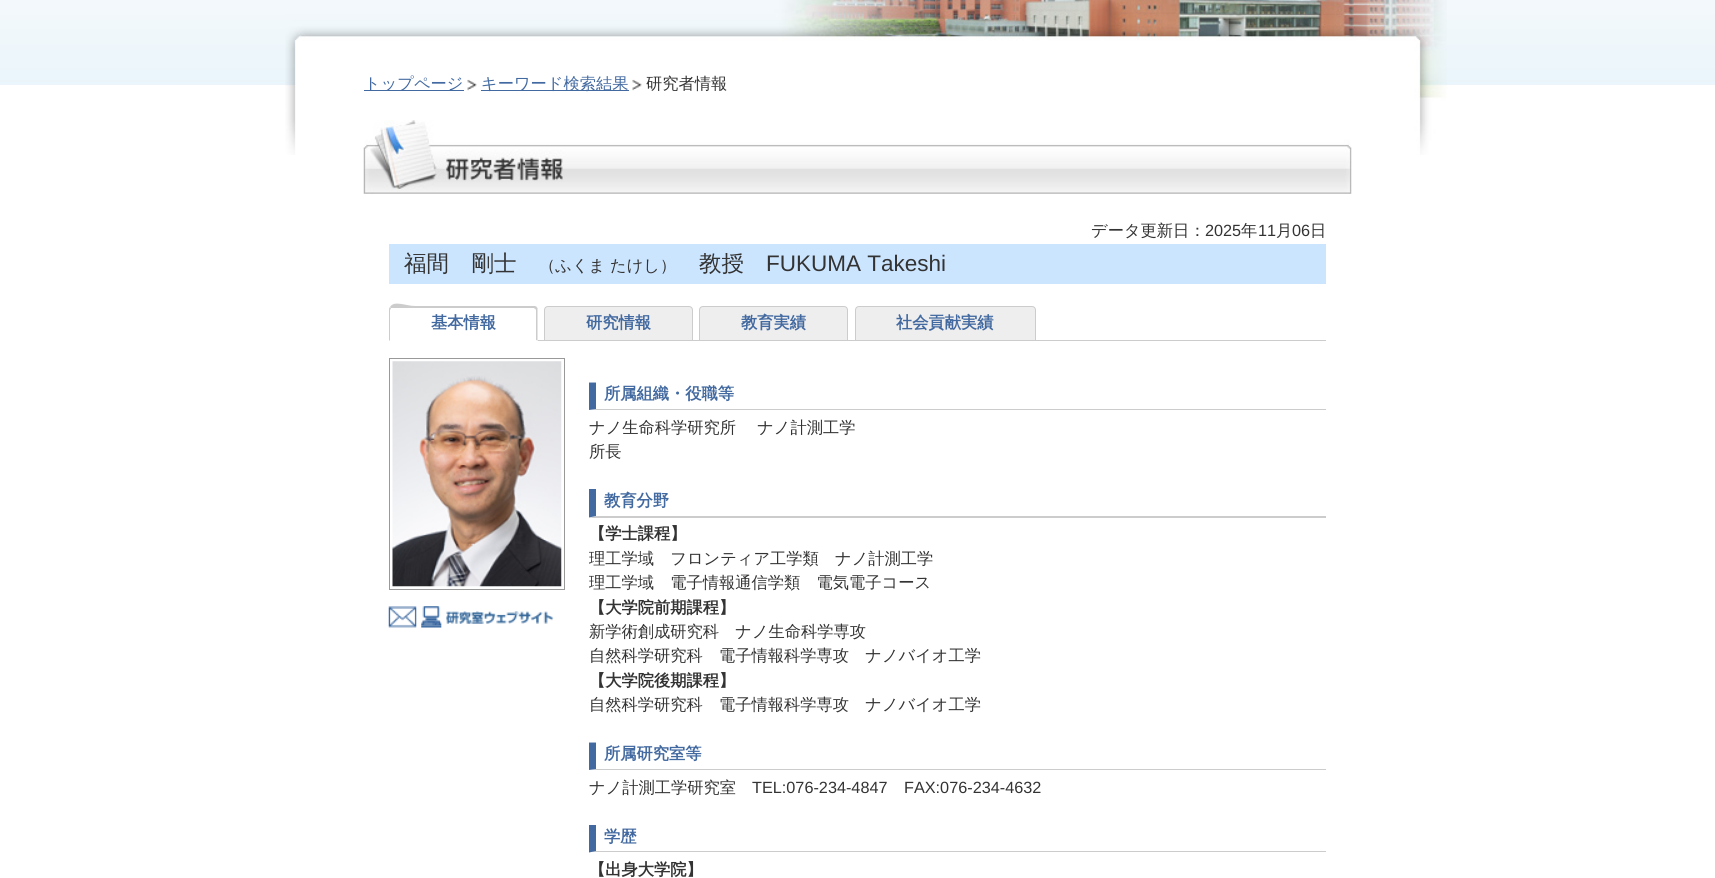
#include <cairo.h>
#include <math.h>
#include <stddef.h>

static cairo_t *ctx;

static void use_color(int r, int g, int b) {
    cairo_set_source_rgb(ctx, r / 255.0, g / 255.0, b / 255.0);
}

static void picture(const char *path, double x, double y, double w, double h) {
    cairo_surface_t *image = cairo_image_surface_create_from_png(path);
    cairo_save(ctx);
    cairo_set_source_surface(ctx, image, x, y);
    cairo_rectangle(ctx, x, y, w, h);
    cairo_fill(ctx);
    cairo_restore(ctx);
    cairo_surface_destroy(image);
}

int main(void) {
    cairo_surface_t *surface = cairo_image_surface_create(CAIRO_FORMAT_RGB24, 1715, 878);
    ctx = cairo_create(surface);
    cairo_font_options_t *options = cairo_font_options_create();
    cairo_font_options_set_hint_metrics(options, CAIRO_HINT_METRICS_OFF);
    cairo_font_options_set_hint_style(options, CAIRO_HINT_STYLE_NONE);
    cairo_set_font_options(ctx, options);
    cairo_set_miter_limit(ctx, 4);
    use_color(255, 255, 255);
    cairo_paint(ctx);
    picture("img1.png", 0, 0, 1715, 85);
    picture("img2.png", 285, 0, 1162, 155);
    picture("img3.png", 467, 79, 10, 12);
    use_color(66, 105, 160);
    cairo_rectangle(ctx, 364, 90, 100, 1);
    cairo_fill(ctx);
    cairo_select_font_face(ctx, "WenQuanYi Zen Hei Medium", CAIRO_FONT_SLANT_NORMAL, CAIRO_FONT_WEIGHT_NORMAL);
    cairo_set_font_size(ctx, 16.25);
    cairo_move_to(ctx, 364, 89);
    cairo_show_text(ctx, "トップページ");
    picture("img3.png", 632, 79, 10, 12);
    cairo_rectangle(ctx, 481, 90, 148, 1);
    cairo_fill(ctx);
    cairo_move_to(ctx, 481, 89);
    cairo_show_text(ctx, "キーワード検索結果");
    use_color(51, 51, 51);
    cairo_move_to(ctx, 646, 89);
    cairo_show_text(ctx, "研究者情報");
    picture("img4.png", 363, 120, 989, 74);
    cairo_move_to(ctx, 1091, 236);
    cairo_show_text(ctx, "データ更新日：");
    cairo_select_font_face(ctx, "Liberation Sans", CAIRO_FONT_SLANT_NORMAL, CAIRO_FONT_WEIGHT_NORMAL);
    cairo_move_to(ctx, 1205, 236);
    cairo_show_text(ctx, "2025");
    cairo_select_font_face(ctx, "WenQuanYi Zen Hei Medium", CAIRO_FONT_SLANT_NORMAL, CAIRO_FONT_WEIGHT_NORMAL);
    cairo_move_to(ctx, 1241, 236);
    cairo_show_text(ctx, "年");
    cairo_select_font_face(ctx, "Liberation Sans", CAIRO_FONT_SLANT_NORMAL, CAIRO_FONT_WEIGHT_NORMAL);
    cairo_move_to(ctx, 1258, 236);
    cairo_show_text(ctx, "11");
    cairo_select_font_face(ctx, "WenQuanYi Zen Hei Medium", CAIRO_FONT_SLANT_NORMAL, CAIRO_FONT_WEIGHT_NORMAL);
    cairo_move_to(ctx, 1276, 236);
    cairo_show_text(ctx, "月");
    cairo_select_font_face(ctx, "Liberation Sans", CAIRO_FONT_SLANT_NORMAL, CAIRO_FONT_WEIGHT_NORMAL);
    cairo_move_to(ctx, 1292, 236);
    cairo_show_text(ctx, "06");
    cairo_select_font_face(ctx, "WenQuanYi Zen Hei Medium", CAIRO_FONT_SLANT_NORMAL, CAIRO_FONT_WEIGHT_NORMAL);
    cairo_move_to(ctx, 1310, 236);
    cairo_show_text(ctx, "日");
    use_color(204, 229, 255);
    cairo_rectangle(ctx, 389, 244, 937, 40);
    cairo_fill(ctx);
    cairo_set_font_size(ctx, 22.5);
    use_color(51, 51, 51);
    cairo_move_to(ctx, 404, 271);
    cairo_show_text(ctx, "福間　剛士");
    cairo_set_font_size(ctx, 16.25);
    cairo_move_to(ctx, 539, 271);
    cairo_show_text(ctx, "（ふくま たけし）");
    cairo_set_font_size(ctx, 22.5);
    cairo_move_to(ctx, 699, 271);
    cairo_show_text(ctx, "教授");
    cairo_select_font_face(ctx, "Liberation Sans", CAIRO_FONT_SLANT_NORMAL, CAIRO_FONT_WEIGHT_NORMAL);
    cairo_move_to(ctx, 766, 271);
    cairo_show_text(ctx, "FUKUMA Takeshi");
    use_color(204, 204, 204);
    cairo_new_path(ctx);
    cairo_move_to(ctx, 392, 308);
    cairo_line_to(ctx, 391, 308);
    cairo_line_to(ctx, 390, 307);
    cairo_curve_to(ctx, 394, 300, 406, 306, 415, 306);
    cairo_line_to(ctx, 535, 306);
    cairo_line_to(ctx, 537, 307);
    cairo_line_to(ctx, 535, 309);
    cairo_line_to(ctx, 534, 308);
    cairo_close_path(ctx);
    cairo_fill(ctx);
    cairo_new_path(ctx);
    cairo_move_to(ctx, 537.5, 341);
    cairo_line_to(ctx, 536, 340);
    cairo_line_to(ctx, 536, 310);
    cairo_line_to(ctx, 535, 308.5);
    cairo_line_to(ctx, 536.5, 307);
    cairo_line_to(ctx, 537.5, 308);
    cairo_close_path(ctx);
    cairo_fill(ctx);
    use_color(255, 255, 255);
    cairo_new_path(ctx);
    cairo_move_to(ctx, 537, 341);
    cairo_line_to(ctx, 389, 341);
    cairo_line_to(ctx, 390, 340);
    cairo_line_to(ctx, 536, 340);
    cairo_close_path(ctx);
    cairo_fill(ctx);
    use_color(204, 204, 204);
    cairo_new_path(ctx);
    cairo_move_to(ctx, 389, 341);
    cairo_line_to(ctx, 390, 340);
    cairo_line_to(ctx, 390, 310);
    cairo_line_to(ctx, 391, 308.5);
    cairo_line_to(ctx, 390, 307);
    cairo_curve_to(ctx, 389, 308, 389, 309, 389, 310);
    cairo_close_path(ctx);
    cairo_fill(ctx);
    cairo_select_font_face(ctx, "WenQuanYi Zen Hei", CAIRO_FONT_SLANT_NORMAL, CAIRO_FONT_WEIGHT_BOLD);
    cairo_set_font_size(ctx, 16.25);
    use_color(66, 105, 160);
    cairo_move_to(ctx, 431, 328);
    cairo_show_text(ctx, "基本情報");
    use_color(204, 204, 204);
    cairo_rectangle(ctx, 538, 340, 788, 1);
    cairo_fill(ctx);
    use_color(238, 238, 238);
    cairo_new_path(ctx);
    cairo_move_to(ctx, 548, 306.5);
    cairo_line_to(ctx, 689, 306.5);
    cairo_curve_to(ctx, 691, 306.5, 692.5, 308, 692.5, 310);
    cairo_line_to(ctx, 692.5, 340.5);
    cairo_line_to(ctx, 544.5, 340.5);
    cairo_line_to(ctx, 544.5, 310);
    cairo_curve_to(ctx, 544.5, 308, 546, 306.5, 548, 306.5);
    cairo_close_path(ctx);
    cairo_fill_preserve(ctx);
    use_color(204, 204, 204);
    cairo_set_line_width(ctx, 1);
    cairo_stroke(ctx);
    use_color(66, 105, 160);
    cairo_move_to(ctx, 586, 328);
    cairo_show_text(ctx, "研究情報");
    use_color(238, 238, 238);
    cairo_new_path(ctx);
    cairo_move_to(ctx, 703, 306.5);
    cairo_line_to(ctx, 844, 306.5);
    cairo_curve_to(ctx, 846, 306.5, 847.5, 308, 847.5, 310);
    cairo_line_to(ctx, 847.5, 340.5);
    cairo_line_to(ctx, 699.5, 340.5);
    cairo_line_to(ctx, 699.5, 310);
    cairo_curve_to(ctx, 699.5, 308, 701, 306.5, 703, 306.5);
    cairo_close_path(ctx);
    cairo_fill_preserve(ctx);
    use_color(204, 204, 204);
    cairo_stroke(ctx);
    use_color(66, 105, 160);
    cairo_move_to(ctx, 741, 328);
    cairo_show_text(ctx, "教育実績");
    use_color(238, 238, 238);
    cairo_new_path(ctx);
    cairo_move_to(ctx, 859, 306.5);
    cairo_line_to(ctx, 1032, 306.5);
    cairo_curve_to(ctx, 1034, 306.5, 1035.5, 308, 1035.5, 310);
    cairo_line_to(ctx, 1035.5, 340.5);
    cairo_line_to(ctx, 855.5, 340.5);
    cairo_line_to(ctx, 855.5, 310);
    cairo_curve_to(ctx, 855.5, 308, 857, 306.5, 859, 306.5);
    cairo_close_path(ctx);
    cairo_fill_preserve(ctx);
    use_color(204, 204, 204);
    cairo_stroke(ctx);
    use_color(66, 105, 160);
    cairo_move_to(ctx, 896, 328);
    cairo_show_text(ctx, "社会貢献実績");
    picture("img5.png", 392, 361, 170, 226);
    cairo_rectangle(ctx, 389.5, 358.5, 175, 231);
    use_color(153, 153, 153);
    cairo_stroke(ctx);
    picture("img6.png", 388, 606, 29, 22);
    picture("img7.png", 421, 606, 133, 22);
    use_color(204, 204, 204);
    cairo_new_path(ctx);
    cairo_move_to(ctx, 1326, 410);
    cairo_line_to(ctx, 589, 410);
    cairo_line_to(ctx, 596, 409);
    cairo_line_to(ctx, 1326, 409);
    cairo_close_path(ctx);
    cairo_fill(ctx);
    use_color(66, 105, 160);
    cairo_new_path(ctx);
    cairo_move_to(ctx, 589, 410);
    cairo_line_to(ctx, 589, 382.5);
    cairo_line_to(ctx, 596, 382.5);
    cairo_line_to(ctx, 596, 409);
    cairo_close_path(ctx);
    cairo_fill(ctx);
    cairo_move_to(ctx, 604, 399);
    cairo_show_text(ctx, "所属組織・役職等");
    cairo_select_font_face(ctx, "WenQuanYi Zen Hei Medium", CAIRO_FONT_SLANT_NORMAL, CAIRO_FONT_WEIGHT_NORMAL);
    use_color(51, 51, 51);
    cairo_move_to(ctx, 589, 433);
    cairo_show_text(ctx, "ナノ生命科学研究所 　ナノ計測工学");
    cairo_move_to(ctx, 589, 457);
    cairo_show_text(ctx, "所長");
    use_color(204, 204, 204);
    cairo_new_path(ctx);
    cairo_move_to(ctx, 1326, 518);
    cairo_line_to(ctx, 589, 518);
    cairo_line_to(ctx, 596, 516);
    cairo_line_to(ctx, 1326, 516);
    cairo_close_path(ctx);
    cairo_fill(ctx);
    use_color(66, 105, 160);
    cairo_new_path(ctx);
    cairo_move_to(ctx, 589, 517.5);
    cairo_line_to(ctx, 589, 489);
    cairo_line_to(ctx, 596, 489);
    cairo_line_to(ctx, 596, 516);
    cairo_close_path(ctx);
    cairo_fill(ctx);
    cairo_select_font_face(ctx, "WenQuanYi Zen Hei", CAIRO_FONT_SLANT_NORMAL, CAIRO_FONT_WEIGHT_BOLD);
    cairo_move_to(ctx, 604, 506);
    cairo_show_text(ctx, "教育分野");
    use_color(51, 51, 51);
    cairo_move_to(ctx, 589, 539);
    cairo_show_text(ctx, "【学士課程】");
    cairo_select_font_face(ctx, "WenQuanYi Zen Hei Medium", CAIRO_FONT_SLANT_NORMAL, CAIRO_FONT_WEIGHT_NORMAL);
    cairo_move_to(ctx, 589, 564);
    cairo_show_text(ctx, "理工学域　フロンティア工学類　ナノ計測工学");
    cairo_move_to(ctx, 589, 588);
    cairo_show_text(ctx, "理工学域　電子情報通信学類　電気電子コース");
    cairo_select_font_face(ctx, "WenQuanYi Zen Hei", CAIRO_FONT_SLANT_NORMAL, CAIRO_FONT_WEIGHT_BOLD);
    cairo_move_to(ctx, 589, 613);
    cairo_show_text(ctx, "【大学院前期課程】");
    cairo_select_font_face(ctx, "WenQuanYi Zen Hei Medium", CAIRO_FONT_SLANT_NORMAL, CAIRO_FONT_WEIGHT_NORMAL);
    cairo_move_to(ctx, 589, 637);
    cairo_show_text(ctx, "新学術創成研究科　ナノ生命科学専攻");
    cairo_move_to(ctx, 589, 661);
    cairo_show_text(ctx, "自然科学研究科　電子情報科学専攻　ナノバイオ工学");
    cairo_select_font_face(ctx, "WenQuanYi Zen Hei", CAIRO_FONT_SLANT_NORMAL, CAIRO_FONT_WEIGHT_BOLD);
    cairo_move_to(ctx, 589, 686);
    cairo_show_text(ctx, "【大学院後期課程】");
    cairo_select_font_face(ctx, "WenQuanYi Zen Hei Medium", CAIRO_FONT_SLANT_NORMAL, CAIRO_FONT_WEIGHT_NORMAL);
    cairo_move_to(ctx, 589, 710);
    cairo_show_text(ctx, "自然科学研究科　電子情報科学専攻　ナノバイオ工学");
    use_color(204, 204, 204);
    cairo_new_path(ctx);
    cairo_move_to(ctx, 1326, 770);
    cairo_line_to(ctx, 589, 770);
    cairo_line_to(ctx, 596, 769);
    cairo_line_to(ctx, 1326, 769);
    cairo_close_path(ctx);
    cairo_fill(ctx);
    use_color(66, 105, 160);
    cairo_new_path(ctx);
    cairo_move_to(ctx, 589, 770);
    cairo_line_to(ctx, 589, 742.5);
    cairo_line_to(ctx, 596, 742.5);
    cairo_line_to(ctx, 596, 769);
    cairo_close_path(ctx);
    cairo_fill(ctx);
    cairo_select_font_face(ctx, "WenQuanYi Zen Hei", CAIRO_FONT_SLANT_NORMAL, CAIRO_FONT_WEIGHT_BOLD);
    cairo_move_to(ctx, 604, 759);
    cairo_show_text(ctx, "所属研究室等");
    cairo_select_font_face(ctx, "WenQuanYi Zen Hei Medium", CAIRO_FONT_SLANT_NORMAL, CAIRO_FONT_WEIGHT_NORMAL);
    use_color(51, 51, 51);
    cairo_move_to(ctx, 589, 793);
    cairo_show_text(ctx, "ナノ計測工学研究室");
    cairo_select_font_face(ctx, "Liberation Sans", CAIRO_FONT_SLANT_NORMAL, CAIRO_FONT_WEIGHT_NORMAL);
    cairo_move_to(ctx, 752, 793);
    cairo_show_text(ctx, "TEL:076-234-4847");
    cairo_move_to(ctx, 904, 793);
    cairo_show_text(ctx, "FAX:076-234-4632");
    use_color(204, 204, 204);
    cairo_new_path(ctx);
    cairo_move_to(ctx, 1326, 852);
    cairo_line_to(ctx, 589, 852);
    cairo_line_to(ctx, 596, 851);
    cairo_line_to(ctx, 1326, 851);
    cairo_close_path(ctx);
    cairo_fill(ctx);
    use_color(66, 105, 160);
    cairo_new_path(ctx);
    cairo_move_to(ctx, 589, 852.5);
    cairo_line_to(ctx, 589, 825);
    cairo_line_to(ctx, 596, 825);
    cairo_line_to(ctx, 596, 851);
    cairo_close_path(ctx);
    cairo_fill(ctx);
    cairo_select_font_face(ctx, "WenQuanYi Zen Hei", CAIRO_FONT_SLANT_NORMAL, CAIRO_FONT_WEIGHT_BOLD);
    cairo_move_to(ctx, 604, 842);
    cairo_show_text(ctx, "学歴");
    use_color(51, 51, 51);
    cairo_move_to(ctx, 589, 875);
    cairo_show_text(ctx, "【出身大学院】");
    cairo_surface_write_to_png(surface, "result.png");
    cairo_font_options_destroy(options);
    cairo_destroy(ctx);
    cairo_surface_destroy(surface);
    return 0;
}
